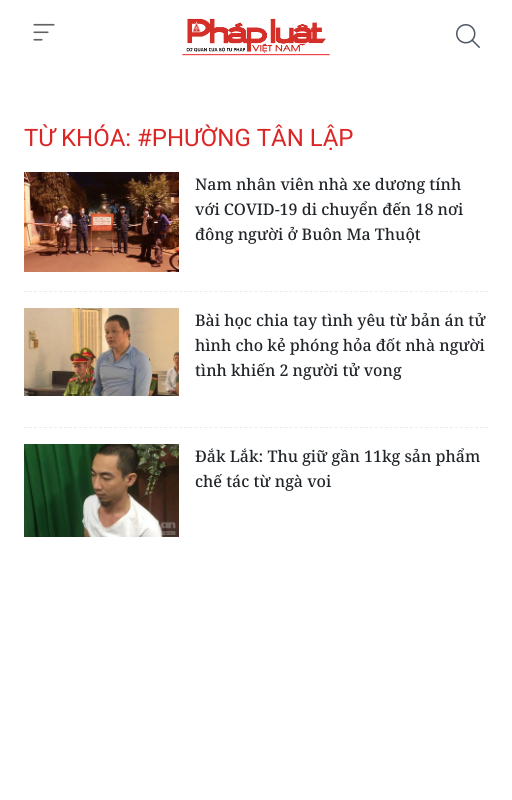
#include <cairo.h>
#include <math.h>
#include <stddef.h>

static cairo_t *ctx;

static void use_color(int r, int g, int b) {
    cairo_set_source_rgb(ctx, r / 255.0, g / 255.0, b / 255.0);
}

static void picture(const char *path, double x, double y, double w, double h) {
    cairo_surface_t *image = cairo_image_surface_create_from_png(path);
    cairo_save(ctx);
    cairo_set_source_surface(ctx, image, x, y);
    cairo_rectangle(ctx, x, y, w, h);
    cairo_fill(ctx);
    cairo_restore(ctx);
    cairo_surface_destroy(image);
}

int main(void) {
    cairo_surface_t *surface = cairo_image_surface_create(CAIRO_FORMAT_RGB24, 512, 800);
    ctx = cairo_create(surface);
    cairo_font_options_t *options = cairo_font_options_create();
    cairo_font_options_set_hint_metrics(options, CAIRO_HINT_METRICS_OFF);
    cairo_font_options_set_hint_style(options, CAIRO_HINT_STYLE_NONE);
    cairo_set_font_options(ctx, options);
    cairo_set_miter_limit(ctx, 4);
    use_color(255, 255, 255);
    cairo_paint(ctx);
    picture("img1.png", 33, 23, 22, 18);
    picture("img2.png", 182, 18, 148, 38);
    picture("img3.png", 456, 24, 24, 24);
    cairo_select_font_face(ctx, "Roboto", CAIRO_FONT_SLANT_NORMAL, CAIRO_FONT_WEIGHT_NORMAL);
    cairo_set_font_size(ctx, 24);
    use_color(220, 38, 38);
    cairo_move_to(ctx, 24, 146);
    cairo_show_text(ctx, "TỪ KHÓA: #PHƯỜNG TÂN LẬP");
    picture("img4.png", 24, 172, 155, 100);
    cairo_select_font_face(ctx, "Noto Serif Medium", CAIRO_FONT_SLANT_NORMAL, CAIRO_FONT_WEIGHT_NORMAL);
    cairo_set_font_size(ctx, 16);
    use_color(33, 37, 41);
    cairo_move_to(ctx, 195, 190);
    cairo_show_text(ctx, "Nam nhân viên nhà xe dương tính");
    cairo_move_to(ctx, 195, 215);
    cairo_show_text(ctx, "với COVID-19 di chuyển đến 18 nơi");
    cairo_move_to(ctx, 195, 240);
    cairo_show_text(ctx, "đông người ở Buôn Ma Thuột");
    cairo_new_path(ctx);
    cairo_move_to(ctx, 24, 291.5);
    cairo_line_to(ctx, 488, 291.5);
    use_color(233, 236, 239);
    cairo_set_line_width(ctx, 1);
    cairo_set_dash(ctx, (double[]){3, 2.01}, 2, 0);
    cairo_stroke(ctx);
    picture("img5.png", 24, 308, 155, 88);
    use_color(33, 37, 41);
    cairo_move_to(ctx, 195, 326);
    cairo_show_text(ctx, "Bài học chia tay tình yêu từ bản án tử");
    cairo_move_to(ctx, 195, 351);
    cairo_show_text(ctx, "hình cho kẻ phóng hỏa đốt nhà người");
    cairo_move_to(ctx, 195, 376);
    cairo_show_text(ctx, "tình khiến 2 người tử vong");
    cairo_new_path(ctx);
    cairo_move_to(ctx, 24, 427.5);
    cairo_line_to(ctx, 488, 427.5);
    use_color(233, 236, 239);
    cairo_stroke(ctx);
    picture("img6.png", 24, 444, 155, 93);
    use_color(33, 37, 41);
    cairo_move_to(ctx, 195, 462);
    cairo_show_text(ctx, "Đắk Lắk: Thu giữ gần 11kg sản phẩm");
    cairo_move_to(ctx, 195, 487);
    cairo_show_text(ctx, "chế tác từ ngà voi");
    cairo_surface_write_to_png(surface, "result.png");
    cairo_font_options_destroy(options);
    cairo_destroy(ctx);
    cairo_surface_destroy(surface);
    return 0;
}
